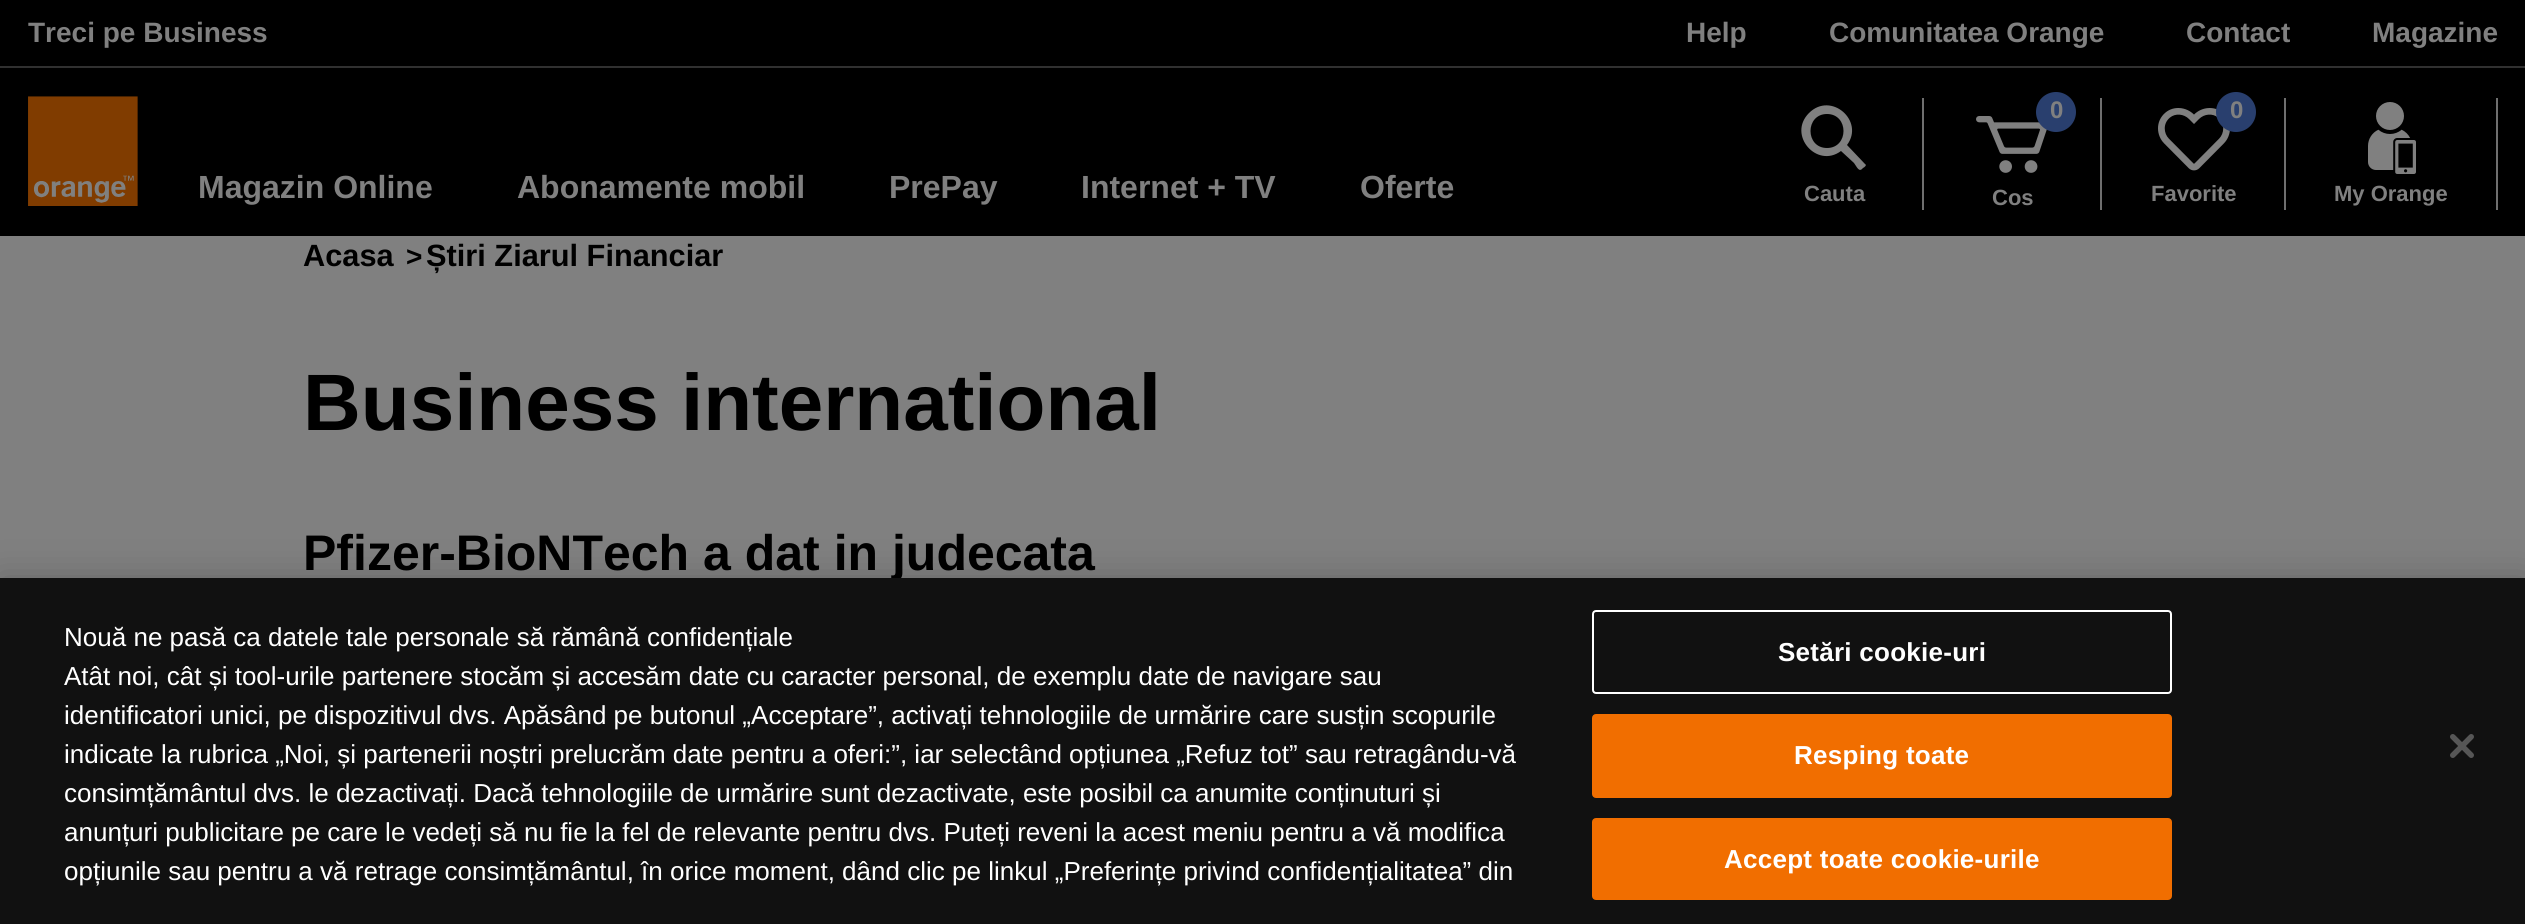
#include <cairo.h>
#include <math.h>
#include <stddef.h>

static cairo_t *ctx;

static void use_color(int r, int g, int b) {
    cairo_set_source_rgb(ctx, r / 255.0, g / 255.0, b / 255.0);
}

static void spaced_text(double x, double y, const char *s, double letter, double word) {
    cairo_move_to(ctx, x, y);
    while (*s) {
        char ch[5] = {0};
        int n = 0;
        do ch[n++] = *s++; while ((*s & 0xC0) == 0x80);
        cairo_show_text(ctx, ch);
        cairo_rel_move_to(ctx, letter + word * (*ch == ' '), 0);
    }
}

static void round_rect(double x, double y, double w, double h, double r) {
    cairo_new_sub_path(ctx);
    cairo_arc(ctx, x + w - r, y + h - r, r, 0, M_PI / 2);
    cairo_arc(ctx, x + r, y + h - r, r, M_PI / 2, M_PI);
    cairo_arc(ctx, x + r, y + r, r, M_PI, 1.5 * M_PI);
    cairo_arc(ctx, x + w - r, y + r, r, 1.5 * M_PI, 2 * M_PI);
    cairo_close_path(ctx);
}

static void shadow(double x, double y, double w, double h, double r, double blur, double alpha) {
    cairo_push_group_with_content(ctx, CAIRO_CONTENT_ALPHA);
    cairo_set_operator(ctx, CAIRO_OPERATOR_SOURCE);
    for (int i = 15; i >= -15 && fmin(w, h) + blur * i / 3 > 0; i -= 2) {
        double e = blur * i / 6;
        cairo_set_source_rgba(ctx, 0, 0, 0, alpha * erfc((i - 1) / 8.5) / 2);
        round_rect(x - e, y - e, w + 2 * e, h + 2 * e, fmax(0, fmin(r + e + blur * .6, fmin(w, h) / 2 + e)));
        cairo_fill(ctx);
    }
    cairo_pattern_t *soft = cairo_pop_group(ctx);
    cairo_mask(ctx, soft);
    cairo_pattern_destroy(soft);
}

static void picture(const char *path, double x, double y, double w, double h) {
    cairo_surface_t *image = cairo_image_surface_create_from_png(path);
    cairo_save(ctx);
    cairo_set_source_surface(ctx, image, x, y);
    cairo_rectangle(ctx, x, y, w, h);
    cairo_fill(ctx);
    cairo_restore(ctx);
    cairo_surface_destroy(image);
}

int main(void) {
    cairo_surface_t *surface = cairo_image_surface_create(CAIRO_FORMAT_RGB24, 2525, 924);
    ctx = cairo_create(surface);
    cairo_font_options_t *options = cairo_font_options_create();
    cairo_font_options_set_hint_metrics(options, CAIRO_HINT_METRICS_OFF);
    cairo_font_options_set_hint_style(options, CAIRO_HINT_STYLE_NONE);
    cairo_set_font_options(ctx, options);
    cairo_set_miter_limit(ctx, 4);
    use_color(128, 128, 128);
    cairo_paint(ctx);
    use_color(0, 0, 0);
    cairo_rectangle(ctx, 0, 0, 2525, 236);
    cairo_fill(ctx);
    use_color(48, 48, 48);
    cairo_rectangle(ctx, 0, 66, 2525, 2);
    cairo_fill(ctx);
    cairo_select_font_face(ctx, "Liberation Sans", CAIRO_FONT_SLANT_NORMAL, CAIRO_FONT_WEIGHT_BOLD);
    cairo_set_font_size(ctx, 28);
    use_color(128, 128, 128);
    cairo_move_to(ctx, 28, 42);
    cairo_show_text(ctx, "Treci pe Business");
    cairo_move_to(ctx, 1686, 42);
    cairo_show_text(ctx, "Help");
    cairo_move_to(ctx, 1829, 42);
    cairo_show_text(ctx, "Comunitatea Orange");
    cairo_move_to(ctx, 2186, 42);
    cairo_show_text(ctx, "Contact");
    cairo_move_to(ctx, 2372, 42);
    cairo_show_text(ctx, "Magazine");
    picture("img1.png", 28, 96, 110, 110);
    cairo_set_font_size(ctx, 32);
    cairo_move_to(ctx, 198, 198);
    cairo_show_text(ctx, "Magazin Online");
    cairo_move_to(ctx, 517, 198);
    cairo_show_text(ctx, "Abonamente mobil");
    cairo_move_to(ctx, 889, 198);
    cairo_show_text(ctx, "PrePay");
    cairo_move_to(ctx, 1081, 198);
    cairo_show_text(ctx, "Internet + TV");
    cairo_move_to(ctx, 1360, 198);
    cairo_show_text(ctx, "Oferte");
    use_color(111, 111, 111);
    cairo_rectangle(ctx, 1922, 98, 2, 112);
    cairo_fill(ctx);
    use_color(128, 128, 128);
    cairo_set_fill_rule(ctx, CAIRO_FILL_RULE_EVEN_ODD);
    cairo_new_path(ctx);
    cairo_move_to(ctx, 1865, 164);
    cairo_line_to(ctx, 1847, 145);
    cairo_curve_to(ctx, 1865, 121, 1831, 91, 1809, 113);
    cairo_curve_to(ctx, 1787, 135, 1817, 169, 1841, 151);
    cairo_line_to(ctx, 1854, 163);
    cairo_curve_to(ctx, 1857, 167, 1859, 173, 1863, 168);
    cairo_curve_to(ctx, 1865, 167, 1867, 165, 1865, 164);
    cairo_close_path(ctx);
    cairo_move_to(ctx, 1827, 148);
    cairo_curve_to(ctx, 1805, 148, 1805, 114, 1827, 114);
    cairo_curve_to(ctx, 1849, 114, 1849, 148, 1827, 148);
    cairo_close_path(ctx);
    cairo_fill(ctx);
    cairo_set_font_size(ctx, 22);
    cairo_move_to(ctx, 1804, 201);
    cairo_show_text(ctx, "Cauta");
    use_color(111, 111, 111);
    cairo_rectangle(ctx, 2100, 98, 2, 112);
    cairo_fill(ctx);
    picture("img2.png", 1976, 116, 71, 57);
    use_color(41, 63, 110);
    cairo_arc(ctx, 2056, 112, 20, 0, 2 * M_PI);
    cairo_fill(ctx);
    cairo_set_font_size(ctx, 24);
    use_color(128, 128, 128);
    cairo_move_to(ctx, 2050, 118);
    cairo_show_text(ctx, "0");
    cairo_set_font_size(ctx, 22);
    cairo_move_to(ctx, 1992, 205);
    cairo_show_text(ctx, "Cos");
    use_color(111, 111, 111);
    cairo_rectangle(ctx, 2284, 98, 2, 112);
    cairo_fill(ctx);
    picture("img3.png", 2158, 108, 72, 63);
    use_color(41, 63, 110);
    cairo_arc(ctx, 2236, 112, 20, 0, 2 * M_PI);
    cairo_fill(ctx);
    cairo_set_font_size(ctx, 24);
    use_color(128, 128, 128);
    cairo_move_to(ctx, 2230, 118);
    cairo_show_text(ctx, "0");
    cairo_set_font_size(ctx, 22);
    cairo_move_to(ctx, 2151, 201);
    cairo_show_text(ctx, "Favorite");
    use_color(111, 111, 111);
    cairo_rectangle(ctx, 2496, 98, 2, 112);
    cairo_fill(ctx);
    picture("img4.png", 2368, 102, 48, 72);
    use_color(128, 128, 128);
    cairo_move_to(ctx, 2334, 201);
    cairo_show_text(ctx, "My Orange");
    cairo_set_font_size(ctx, 30.75);
    use_color(0, 0, 0);
    cairo_move_to(ctx, 303, 266);
    cairo_show_text(ctx, "Acasa");
    cairo_set_font_size(ctx, 28);
    cairo_move_to(ctx, 406, 266);
    cairo_show_text(ctx, ">");
    cairo_set_font_size(ctx, 30.75);
    cairo_move_to(ctx, 426, 266);
    cairo_show_text(ctx, "Știri Ziarul Financiar");
    cairo_set_font_size(ctx, 80);
    cairo_move_to(ctx, 303, 430);
    cairo_show_text(ctx, "Business international");
    cairo_set_font_size(ctx, 50);
    cairo_move_to(ctx, 303, 570);
    cairo_show_text(ctx, "Pfizer-BioNTech a dat in judecata");
    use_color(0, 0, 0);
    shadow(0, 578, 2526, 346, 0, 18, 0.2);
    use_color(17, 17, 17);
    cairo_rectangle(ctx, 0, 578, 2525, 346);
    cairo_fill(ctx);
    cairo_select_font_face(ctx, "Liberation Sans", CAIRO_FONT_SLANT_NORMAL, CAIRO_FONT_WEIGHT_NORMAL);
    cairo_set_font_size(ctx, 26.02);
    use_color(255, 255, 255);
    cairo_move_to(ctx, 64, 646);
    cairo_show_text(ctx, "Nouă ne pasă ca datele tale personale să rămână confidențiale");
    cairo_move_to(ctx, 64, 685);
    cairo_show_text(ctx, "Atât noi, cât și tool-urile partenere stocăm și accesăm date cu caracter personal, de exemplu date de navigare sau");
    cairo_move_to(ctx, 64, 724);
    cairo_show_text(ctx, "identificatori unici, pe dispozitivul dvs. Apăsând pe butonul „Acceptare”, activați tehnologiile de urmărire care susțin scopurile");
    cairo_move_to(ctx, 64, 763);
    cairo_show_text(ctx, "indicate la rubrica „Noi, și partenerii noștri prelucrăm date pentru a oferi:”, iar selectând opțiunea „Refuz tot” sau retragându-vă");
    cairo_move_to(ctx, 64, 802);
    cairo_show_text(ctx, "consimțământul dvs. le dezactivați. Dacă tehnologiile de urmărire sunt dezactivate, este posibil ca anumite conținuturi și");
    cairo_move_to(ctx, 64, 841);
    cairo_show_text(ctx, "anunțuri publicitare pe care le vedeți să nu fie la fel de relevante pentru dvs. Puteți reveni la acest meniu pentru a vă modifica");
    cairo_move_to(ctx, 64, 880);
    cairo_show_text(ctx, "opțiunile sau pentru a vă retrage consimțământul, în orice moment, dând clic pe linkul „Preferințe privind confidențialitatea” din");
    round_rect(1593, 611, 578, 82, 3);
    cairo_stroke(ctx);
    cairo_select_font_face(ctx, "Liberation Sans", CAIRO_FONT_SLANT_NORMAL, CAIRO_FONT_WEIGHT_BOLD);
    spaced_text(1778, 661, "Setări cookie-uri", 0.25, 0);
    use_color(241, 110, 0);
    round_rect(1593, 715, 578, 82, 3);
    cairo_fill_preserve(ctx);
    cairo_stroke(ctx);
    use_color(255, 255, 255);
    spaced_text(1794, 764, "Resping toate", 0.25, 0);
    use_color(241, 110, 0);
    round_rect(1593, 819, 578, 80, 3);
    cairo_fill_preserve(ctx);
    cairo_stroke(ctx);
    use_color(255, 255, 255);
    spaced_text(1724, 868, "Accept toate cookie-urile", 0.25, 0);
    picture("img5.png", 2450, 734, 24, 24);
    cairo_surface_write_to_png(surface, "result.png");
    cairo_font_options_destroy(options);
    cairo_destroy(ctx);
    cairo_surface_destroy(surface);
    return 0;
}
